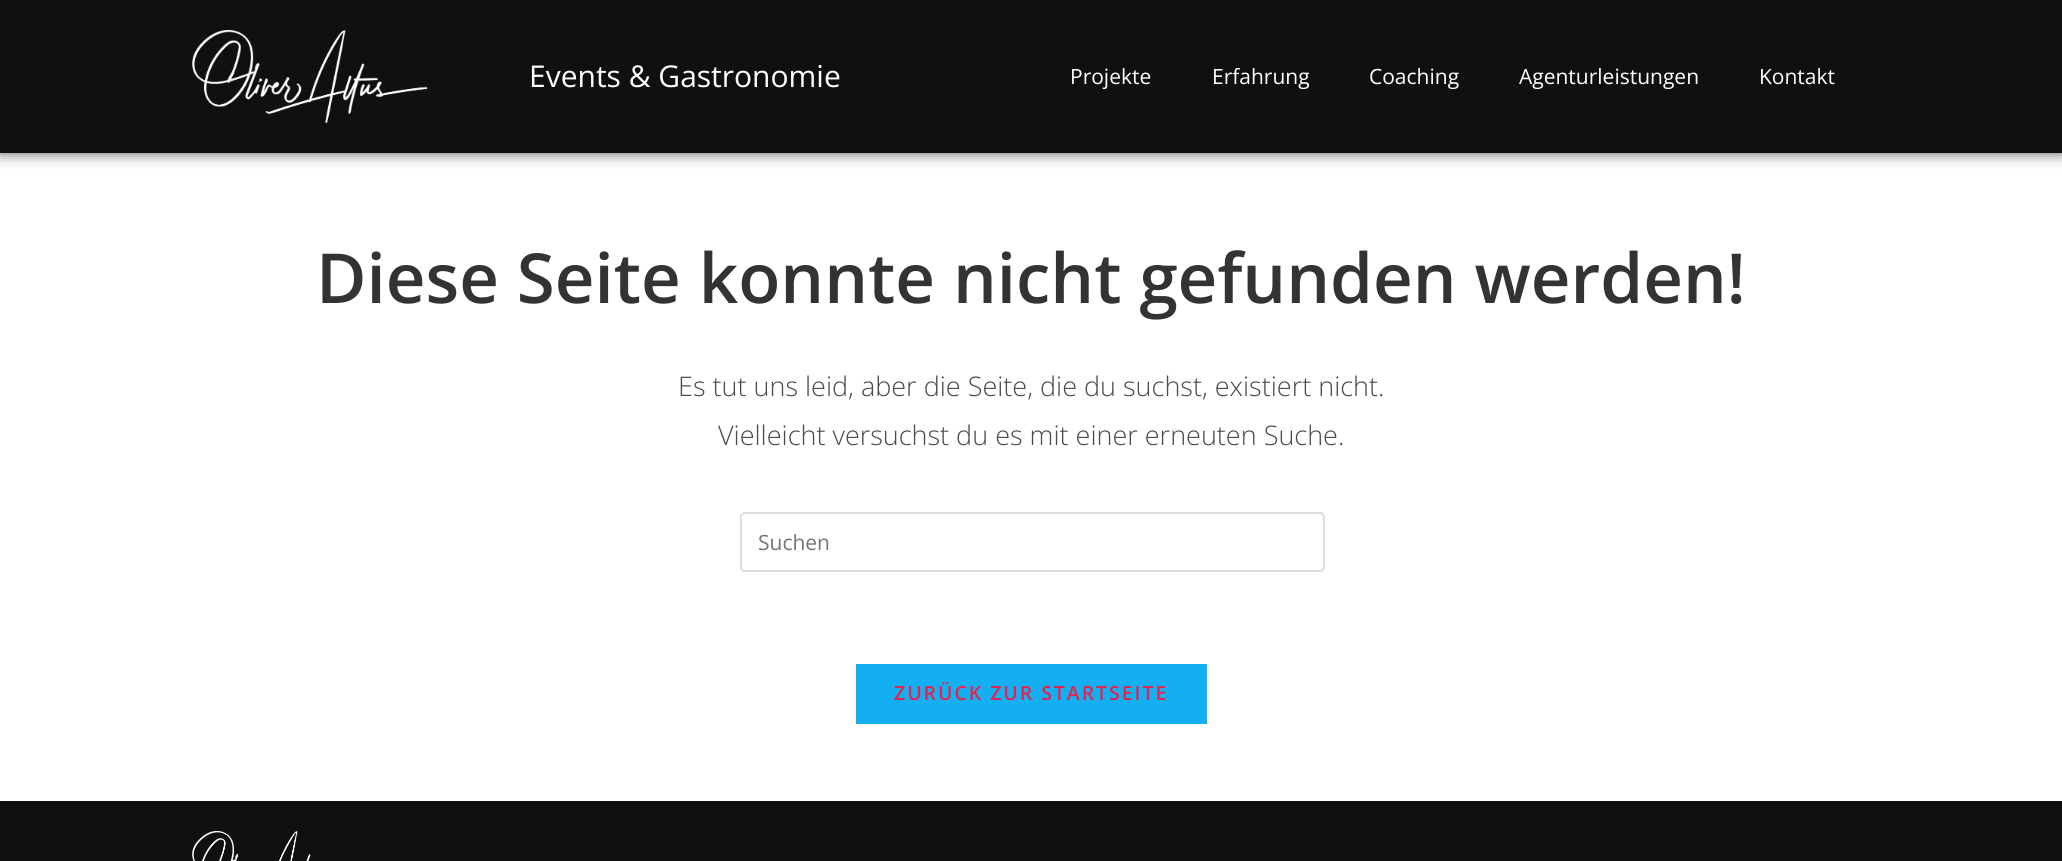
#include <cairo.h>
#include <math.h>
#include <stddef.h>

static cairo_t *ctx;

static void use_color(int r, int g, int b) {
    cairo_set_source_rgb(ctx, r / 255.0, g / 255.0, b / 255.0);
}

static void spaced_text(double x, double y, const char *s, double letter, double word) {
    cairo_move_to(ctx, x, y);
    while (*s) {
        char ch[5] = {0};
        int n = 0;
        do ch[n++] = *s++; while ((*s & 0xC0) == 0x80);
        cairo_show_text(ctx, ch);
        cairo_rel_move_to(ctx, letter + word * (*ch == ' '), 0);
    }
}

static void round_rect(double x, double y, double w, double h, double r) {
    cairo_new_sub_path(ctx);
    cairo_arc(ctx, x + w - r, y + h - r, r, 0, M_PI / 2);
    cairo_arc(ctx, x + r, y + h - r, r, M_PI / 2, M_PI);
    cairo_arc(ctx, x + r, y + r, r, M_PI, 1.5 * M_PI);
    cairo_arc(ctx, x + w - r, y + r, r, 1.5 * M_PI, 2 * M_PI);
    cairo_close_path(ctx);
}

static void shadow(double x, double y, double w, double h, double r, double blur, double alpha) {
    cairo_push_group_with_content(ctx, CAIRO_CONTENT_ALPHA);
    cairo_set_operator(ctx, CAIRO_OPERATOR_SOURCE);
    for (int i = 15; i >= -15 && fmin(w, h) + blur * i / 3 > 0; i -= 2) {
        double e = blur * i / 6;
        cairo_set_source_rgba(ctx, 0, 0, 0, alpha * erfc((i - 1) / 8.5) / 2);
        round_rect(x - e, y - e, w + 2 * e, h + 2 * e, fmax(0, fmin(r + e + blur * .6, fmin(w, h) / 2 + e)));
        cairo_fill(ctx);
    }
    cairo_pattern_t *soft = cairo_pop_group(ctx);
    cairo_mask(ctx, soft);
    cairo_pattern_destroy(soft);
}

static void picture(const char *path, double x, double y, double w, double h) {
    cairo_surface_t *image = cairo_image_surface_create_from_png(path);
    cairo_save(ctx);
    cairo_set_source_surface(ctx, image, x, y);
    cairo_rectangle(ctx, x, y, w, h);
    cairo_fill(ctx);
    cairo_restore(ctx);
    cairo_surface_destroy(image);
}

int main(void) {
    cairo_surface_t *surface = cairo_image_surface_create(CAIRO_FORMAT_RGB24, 2062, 861);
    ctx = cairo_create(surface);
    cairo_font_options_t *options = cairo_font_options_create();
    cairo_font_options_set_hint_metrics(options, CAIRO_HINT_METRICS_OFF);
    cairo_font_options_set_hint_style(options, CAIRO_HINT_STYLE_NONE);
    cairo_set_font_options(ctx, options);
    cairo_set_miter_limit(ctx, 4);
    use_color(255, 255, 255);
    cairo_paint(ctx);
    use_color(88, 88, 88);
    shadow(0, 0, 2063, 153, 0, 7.5, 1);
    use_color(16, 16, 16);
    cairo_rectangle(ctx, 0, 0, 2062, 153);
    cairo_fill(ctx);
    picture("img1.png", 192, 30, 236, 93);
    cairo_select_font_face(ctx, "Open Sans", CAIRO_FONT_SLANT_NORMAL, CAIRO_FONT_WEIGHT_NORMAL);
    cairo_set_font_size(ctx, 30);
    use_color(255, 255, 255);
    cairo_move_to(ctx, 529, 87);
    cairo_show_text(ctx, "Events & Gastronomie");
    cairo_set_font_size(ctx, 21);
    cairo_move_to(ctx, 1070, 84);
    cairo_show_text(ctx, "Projekte");
    cairo_move_to(ctx, 1212, 84);
    cairo_show_text(ctx, "Erfahrung");
    cairo_move_to(ctx, 1369, 84);
    cairo_show_text(ctx, "Coaching");
    cairo_move_to(ctx, 1519, 84);
    cairo_show_text(ctx, "Agenturleistungen");
    cairo_move_to(ctx, 1759, 84);
    cairo_show_text(ctx, "Kontakt");
    cairo_select_font_face(ctx, "Open Sans SemiBold", CAIRO_FONT_SLANT_NORMAL, CAIRO_FONT_WEIGHT_NORMAL);
    cairo_set_font_size(ctx, 69);
    use_color(51, 51, 51);
    cairo_move_to(ctx, 316, 303);
    cairo_show_text(ctx, "Diese Seite konnte nicht gefunden werden!");
    cairo_select_font_face(ctx, "Open Sans Light", CAIRO_FONT_SLANT_NORMAL, CAIRO_FONT_WEIGHT_NORMAL);
    cairo_set_font_size(ctx, 27);
    use_color(74, 74, 74);
    cairo_move_to(ctx, 678, 396);
    cairo_show_text(ctx, "Es tut uns leid, aber die Seite, die du suchst, existiert nicht.");
    cairo_move_to(ctx, 718, 445);
    cairo_show_text(ctx, "Vielleicht versuchst du es mit einer erneuten Suche.");
    round_rect(741, 513, 583, 58, 4);
    use_color(221, 221, 221);
    cairo_stroke(ctx);
    cairo_select_font_face(ctx, "Open Sans", CAIRO_FONT_SLANT_NORMAL, CAIRO_FONT_WEIGHT_NORMAL);
    cairo_set_font_size(ctx, 21);
    use_color(117, 117, 117);
    cairo_move_to(ctx, 758, 550);
    cairo_show_text(ctx, "Suchen");
    use_color(19, 175, 240);
    cairo_rectangle(ctx, 856, 664, 351, 60);
    cairo_fill(ctx);
    cairo_select_font_face(ctx, "Open Sans SemiBold", CAIRO_FONT_SLANT_NORMAL, CAIRO_FONT_WEIGHT_NORMAL);
    cairo_set_font_size(ctx, 19.5);
    use_color(233, 32, 79);
    spaced_text(894, 700, "ZURÜCK ZUR STARTSEITE", 1.95, 0);
    use_color(16, 16, 16);
    cairo_rectangle(ctx, 0, 801, 2062, 60);
    cairo_fill(ctx);
    picture("img2.png", 192, 831, 119, 30);
    cairo_surface_write_to_png(surface, "result.png");
    cairo_font_options_destroy(options);
    cairo_destroy(ctx);
    cairo_surface_destroy(surface);
    return 0;
}
